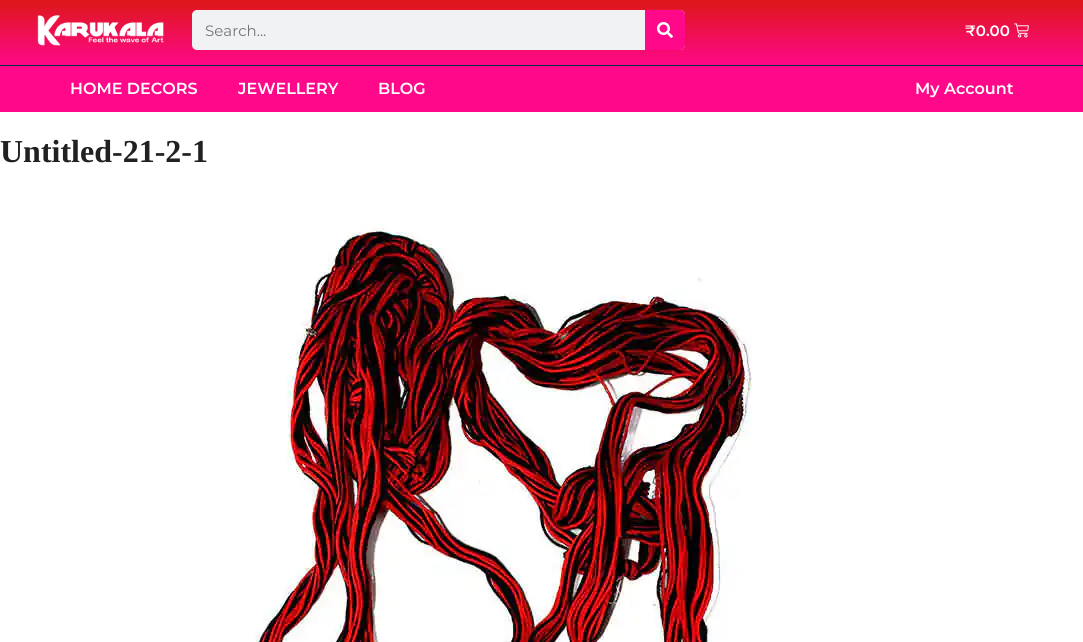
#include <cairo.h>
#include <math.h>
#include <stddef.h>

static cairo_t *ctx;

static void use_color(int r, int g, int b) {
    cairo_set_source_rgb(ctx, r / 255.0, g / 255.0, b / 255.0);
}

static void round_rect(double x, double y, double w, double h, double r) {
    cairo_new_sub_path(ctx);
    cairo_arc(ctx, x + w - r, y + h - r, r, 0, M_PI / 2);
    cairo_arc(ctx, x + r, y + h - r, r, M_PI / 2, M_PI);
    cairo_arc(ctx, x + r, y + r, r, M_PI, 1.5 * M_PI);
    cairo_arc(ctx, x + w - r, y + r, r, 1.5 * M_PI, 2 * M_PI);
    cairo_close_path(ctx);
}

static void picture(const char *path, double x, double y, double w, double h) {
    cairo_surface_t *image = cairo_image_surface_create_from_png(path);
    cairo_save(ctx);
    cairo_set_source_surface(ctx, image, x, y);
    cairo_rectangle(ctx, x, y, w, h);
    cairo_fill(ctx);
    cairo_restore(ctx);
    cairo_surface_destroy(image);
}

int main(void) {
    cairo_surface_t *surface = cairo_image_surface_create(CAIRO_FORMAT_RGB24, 1083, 642);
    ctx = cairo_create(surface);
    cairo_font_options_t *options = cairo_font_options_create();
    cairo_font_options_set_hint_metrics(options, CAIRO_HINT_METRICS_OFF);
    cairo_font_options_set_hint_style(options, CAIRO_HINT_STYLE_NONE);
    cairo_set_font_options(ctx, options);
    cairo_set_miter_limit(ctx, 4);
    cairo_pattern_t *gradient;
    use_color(255, 255, 255);
    cairo_paint(ctx);
    gradient = cairo_pattern_create_linear(542, 0, 542, 65);
    cairo_pattern_add_color_stop_rgba(gradient, 0, 0.867, 0.09, 0.098, 1);
    cairo_pattern_add_color_stop_rgba(gradient, 1, 1, 0.031, 0.537, 1);
    cairo_set_source(ctx, gradient);
    cairo_pattern_destroy(gradient);
    cairo_rectangle(ctx, 0, 0, 1083, 65);
    cairo_fill(ctx);
    picture("img1.png", 37, 15, 127, 31);
    use_color(241, 242, 243);
    round_rect(192, 10, 493, 40, 5);
    cairo_fill(ctx);
    cairo_select_font_face(ctx, "Montserrat", CAIRO_FONT_SLANT_NORMAL, CAIRO_FONT_WEIGHT_NORMAL);
    cairo_set_font_size(ctx, 15);
    use_color(116, 117, 117);
    cairo_move_to(ctx, 205, 36);
    cairo_show_text(ctx, "Search...");
    use_color(255, 8, 137);
    cairo_new_path(ctx);
    cairo_move_to(ctx, 645, 10);
    cairo_line_to(ctx, 680, 10);
    cairo_curve_to(ctx, 683, 10, 685, 12, 685, 15);
    cairo_line_to(ctx, 685, 45);
    cairo_curve_to(ctx, 685, 48, 683, 50, 680, 50);
    cairo_line_to(ctx, 645, 50);
    cairo_close_path(ctx);
    cairo_fill(ctx);
    picture("img2.png", 657, 22, 16, 16);
    cairo_select_font_face(ctx, "Montserrat SemiBold", CAIRO_FONT_SLANT_NORMAL, CAIRO_FONT_WEIGHT_NORMAL);
    use_color(255, 255, 255);
    cairo_move_to(ctx, 965, 36);
    cairo_show_text(ctx, "₹0.00");
    picture("img3.png", 1014, 23, 15, 15);
    use_color(255, 8, 137);
    cairo_rectangle(ctx, 0, 66, 1083, 46);
    cairo_fill(ctx);
    use_color(5, 50, 70);
    cairo_rectangle(ctx, 0, 65, 1083, 1);
    cairo_fill(ctx);
    cairo_set_font_size(ctx, 16);
    use_color(255, 255, 255);
    cairo_move_to(ctx, 70, 94);
    cairo_show_text(ctx, "HOME DECORS");
    cairo_move_to(ctx, 238, 94);
    cairo_show_text(ctx, "JEWELLERY");
    cairo_move_to(ctx, 378, 94);
    cairo_show_text(ctx, "BLOG");
    cairo_move_to(ctx, 915, 94);
    cairo_show_text(ctx, "My Account");
    cairo_select_font_face(ctx, "Liberation Serif", CAIRO_FONT_SLANT_NORMAL, CAIRO_FONT_WEIGHT_BOLD);
    cairo_set_font_size(ctx, 32);
    use_color(33, 33, 33);
    cairo_move_to(ctx, 0, 162);
    cairo_show_text(ctx, "Untitled-21-2-1");
    picture("img4.png", 254, 223, 499, 419);
    cairo_surface_write_to_png(surface, "result.png");
    cairo_font_options_destroy(options);
    cairo_destroy(ctx);
    cairo_surface_destroy(surface);
    return 0;
}
